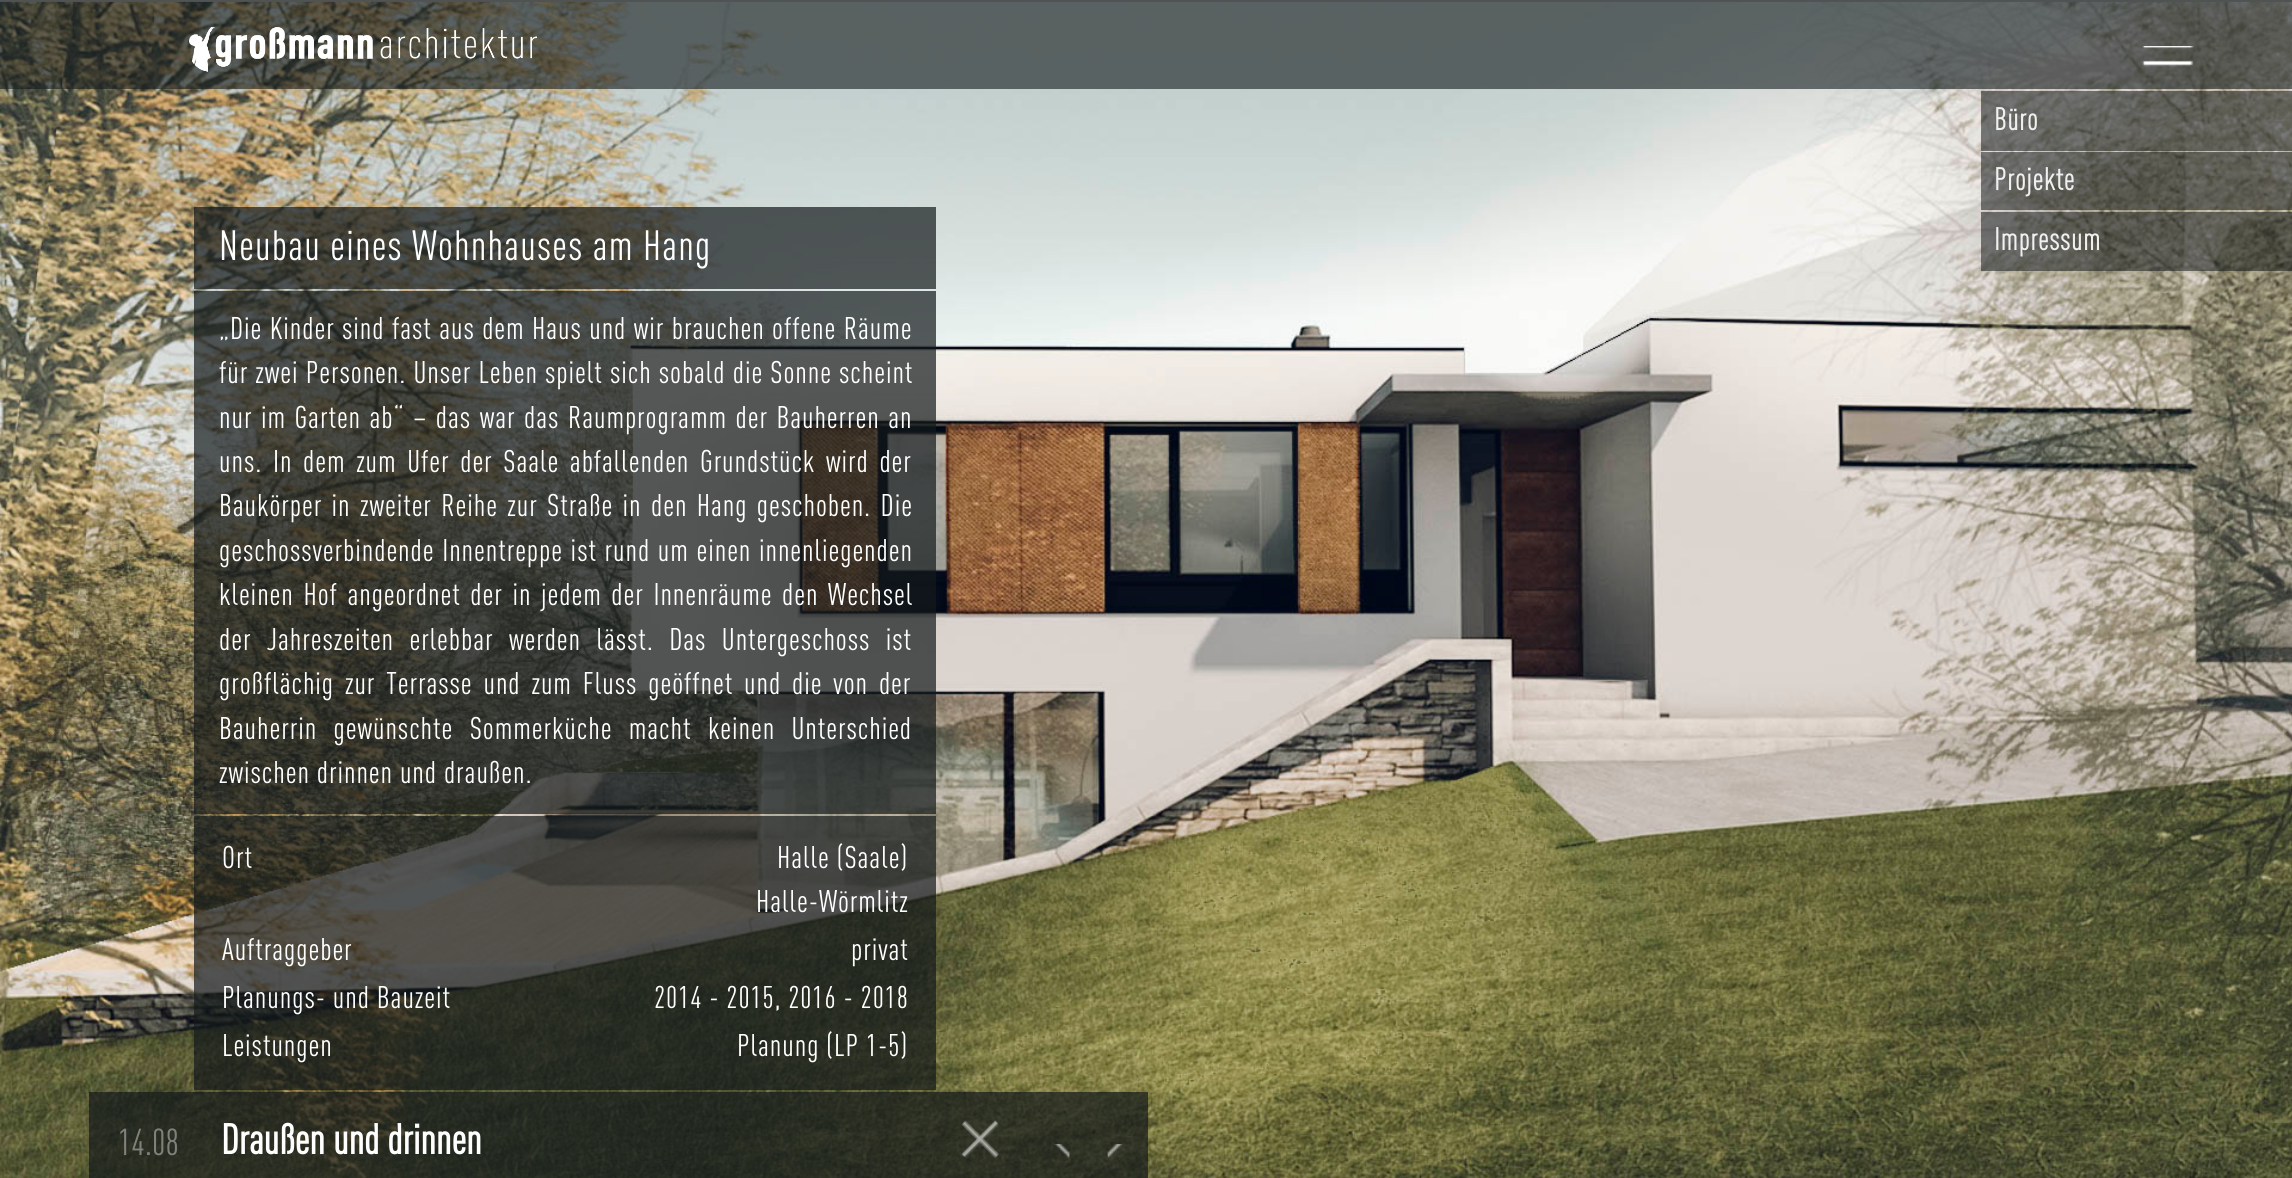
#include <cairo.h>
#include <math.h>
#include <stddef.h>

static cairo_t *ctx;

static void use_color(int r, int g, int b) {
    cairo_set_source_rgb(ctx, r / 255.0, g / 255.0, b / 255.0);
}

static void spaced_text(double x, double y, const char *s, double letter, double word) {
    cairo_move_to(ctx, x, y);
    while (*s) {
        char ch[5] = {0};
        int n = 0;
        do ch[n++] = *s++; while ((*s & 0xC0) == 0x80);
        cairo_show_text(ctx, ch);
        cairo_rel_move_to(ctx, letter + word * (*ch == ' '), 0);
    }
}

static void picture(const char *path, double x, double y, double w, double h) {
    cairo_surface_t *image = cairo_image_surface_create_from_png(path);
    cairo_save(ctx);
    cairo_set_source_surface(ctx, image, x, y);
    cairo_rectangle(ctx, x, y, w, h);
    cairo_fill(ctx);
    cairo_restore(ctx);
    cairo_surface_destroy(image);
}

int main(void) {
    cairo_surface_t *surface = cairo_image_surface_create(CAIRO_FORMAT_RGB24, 2292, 1178);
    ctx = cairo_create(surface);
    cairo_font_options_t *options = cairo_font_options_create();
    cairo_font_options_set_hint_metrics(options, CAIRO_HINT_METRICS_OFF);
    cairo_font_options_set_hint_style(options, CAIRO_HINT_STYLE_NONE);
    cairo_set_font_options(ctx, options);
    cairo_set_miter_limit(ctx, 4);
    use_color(170, 170, 170);
    cairo_paint(ctx);
    picture("img3.png", 0, 1, 2292, 1177);
    cairo_set_source_rgba(ctx, 0.075, 0.098, 0.106, 0.6);
    cairo_rectangle(ctx, 0, 0, 2292, 89);
    cairo_fill(ctx);
    picture("img1.png", 189, 27, 348, 45);
    picture("img2.png", 2141, 46, 53, 21);
    cairo_set_source_rgba(ctx, 0.075, 0.098, 0.106, 0.54);
    cairo_rectangle(ctx, 1981, 91, 311, 60);
    cairo_fill(ctx);
    cairo_select_font_face(ctx, "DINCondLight", CAIRO_FONT_SLANT_NORMAL, CAIRO_FONT_WEIGHT_BOLD);
    cairo_set_font_size(ctx, 30.9);
    use_color(240, 240, 240);
    spaced_text(1994, 130, "Büro", 0.93, 0);
    cairo_set_source_rgba(ctx, 0.075, 0.098, 0.106, 0.54);
    cairo_rectangle(ctx, 1981, 152, 311, 58);
    cairo_fill(ctx);
    use_color(240, 240, 240);
    spaced_text(1994, 190, "Projekte", 0.93, 0);
    cairo_set_source_rgba(ctx, 0.075, 0.098, 0.106, 0.54);
    cairo_rectangle(ctx, 1981, 212, 311, 59);
    cairo_fill(ctx);
    use_color(240, 240, 240);
    spaced_text(1994, 250, "Impressum", 0.93, 0);
    cairo_set_source_rgba(ctx, 0.075, 0.098, 0.106, 0.7);
    cairo_rectangle(ctx, 194, 207, 742, 82);
    cairo_fill(ctx);
    cairo_select_font_face(ctx, "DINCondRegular", CAIRO_FONT_SLANT_NORMAL, CAIRO_FONT_WEIGHT_NORMAL);
    cairo_set_font_size(ctx, 41.75);
    use_color(255, 255, 255);
    spaced_text(219, 260, "Neubau eines Wohnhauses am Hang", 1.25, 0);
    cairo_set_source_rgba(ctx, 0.075, 0.098, 0.106, 0.7);
    cairo_rectangle(ctx, 194, 291, 742, 523);
    cairo_fill(ctx);
    cairo_set_font_size(ctx, 30.9);
    use_color(255, 255, 255);
    spaced_text(219, 339, "„Die Kinder sind fast aus dem Haus und wir brauchen offene Räume", 0.93, 0.5);
    spaced_text(219, 383, "für zwei Personen. Unser Leben spielt sich sobald die Sonne scheint", 0.93, 0.25);
    spaced_text(219, 428, "nur im Garten ab“ – das war das Raumprogramm der Bauherren an", 0.93, 1.6);
    spaced_text(219, 472, "uns. In dem zum Ufer der Saale abfallenden Grundstück wird der", 0.93, 3.75);
    spaced_text(219, 516, "Baukörper in zweiter Reihe zur Straße in den Hang geschoben. Die", 0.93, 2.5);
    spaced_text(219, 561, "geschossverbindende Innentreppe ist rund um einen innenliegenden", 0.93, 0.75);
    spaced_text(219, 605, "kleinen Hof angeordnet der in jedem der Innenräume den Wechsel", 0.93, 2.75);
    spaced_text(219, 650, "der Jahreszeiten erlebbar werden lässt. Das Untergeschoss ist", 0.93, 8.5);
    spaced_text(219, 694, "großflächig zur Terrasse und zum Fluss geöffnet und die von der", 0.93, 4);
    spaced_text(219, 739, "Bauherrin gewünschte Sommerküche macht keinen Unterschied", 0.93, 9.5);
    spaced_text(219, 783, "zwischen drinnen und draußen.", 0.93, 0);
    cairo_set_source_rgba(ctx, 0.075, 0.098, 0.106, 0.7);
    cairo_rectangle(ctx, 194, 816, 742, 274);
    cairo_fill(ctx);
    use_color(255, 255, 255);
    spaced_text(222, 868, "Ort", 0.93, 0);
    spaced_text(777, 868, "Halle (Saale)", 0.93, 0);
    spaced_text(756, 912, "Halle-Wörmlitz", 0.93, 0);
    spaced_text(222, 960, "Auftraggeber", 0.93, 0);
    spaced_text(851, 960, "privat", 0.93, 0);
    spaced_text(222, 1008, "Planungs- und Bauzeit", 0.93, 0);
    spaced_text(654, 1008, "2014 - 2015, 2016 - 2018", 0.93, 0);
    spaced_text(222, 1056, "Leistungen", 0.93, 0);
    spaced_text(737, 1056, "Planung (LP 1-5)", 0.93, 0);
    cairo_set_source_rgba(ctx, 0.075, 0.098, 0.106, 0.7);
    cairo_rectangle(ctx, 89, 1092, 847, 86);
    cairo_fill(ctx);
    cairo_set_font_size(ctx, 37);
    use_color(127, 129, 123);
    cairo_move_to(ctx, 118, 1155);
    cairo_show_text(ctx, "14.08");
    cairo_select_font_face(ctx, "DINCondRegular", CAIRO_FONT_SLANT_NORMAL, CAIRO_FONT_WEIGHT_BOLD);
    cairo_set_font_size(ctx, 41.75);
    use_color(255, 255, 255);
    cairo_move_to(ctx, 221, 1154);
    cairo_show_text(ctx, "Draußen und drinnen");
    cairo_set_source_rgba(ctx, 0.075, 0.098, 0.106, 0.7);
    cairo_rectangle(ctx, 936, 1092, 93, 86);
    cairo_fill(ctx);
    picture("img4.png", 961, 1120, 38, 38);
    cairo_rectangle(ctx, 1029, 1092, 60, 86);
    cairo_fill(ctx);
    picture("img5.png", 1054, 1144, 16, 15);
    cairo_rectangle(ctx, 1089, 1092, 59, 86);
    cairo_fill(ctx);
    picture("img6.png", 1107, 1144, 16, 15);
    cairo_surface_write_to_png(surface, "result.png");
    cairo_font_options_destroy(options);
    cairo_destroy(ctx);
    cairo_surface_destroy(surface);
    return 0;
}
